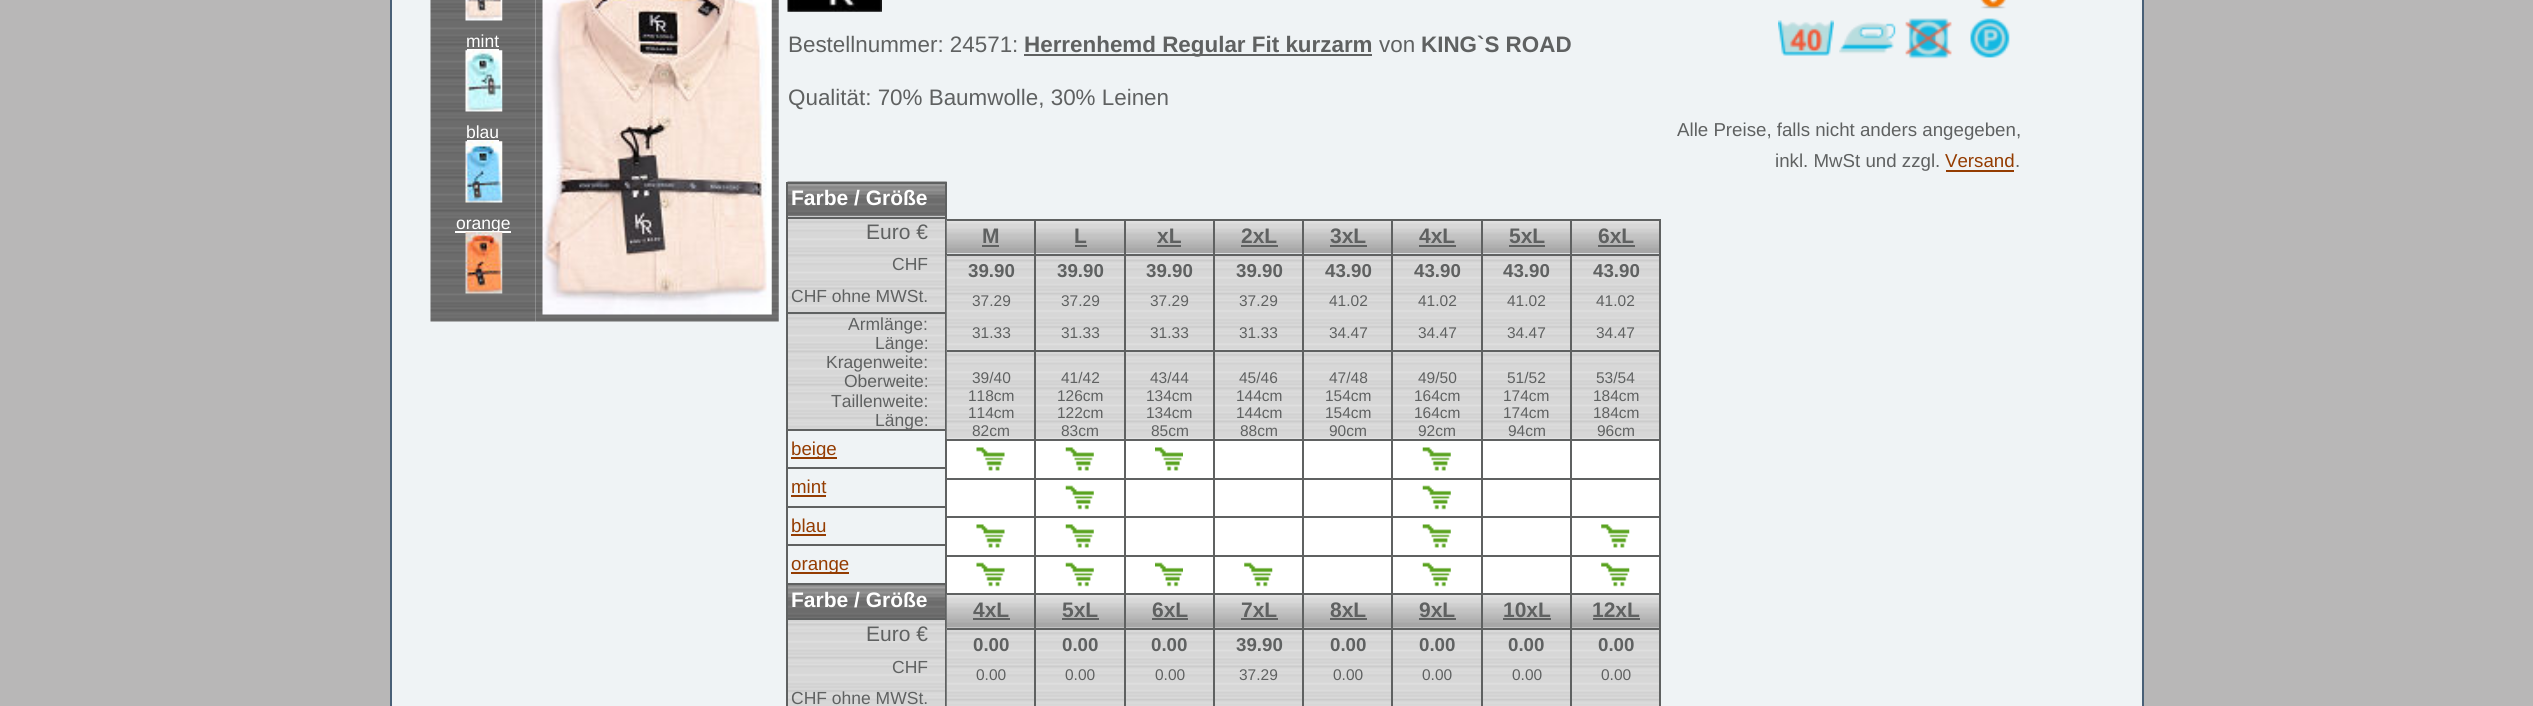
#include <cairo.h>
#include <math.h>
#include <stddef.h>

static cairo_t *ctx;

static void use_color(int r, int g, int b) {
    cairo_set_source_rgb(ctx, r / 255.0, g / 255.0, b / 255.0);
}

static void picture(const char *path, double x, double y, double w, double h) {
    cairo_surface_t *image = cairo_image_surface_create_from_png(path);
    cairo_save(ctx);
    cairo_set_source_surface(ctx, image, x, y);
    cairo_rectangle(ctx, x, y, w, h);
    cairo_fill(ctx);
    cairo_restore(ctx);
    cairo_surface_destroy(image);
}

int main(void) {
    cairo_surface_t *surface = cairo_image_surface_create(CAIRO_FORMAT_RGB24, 2533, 706);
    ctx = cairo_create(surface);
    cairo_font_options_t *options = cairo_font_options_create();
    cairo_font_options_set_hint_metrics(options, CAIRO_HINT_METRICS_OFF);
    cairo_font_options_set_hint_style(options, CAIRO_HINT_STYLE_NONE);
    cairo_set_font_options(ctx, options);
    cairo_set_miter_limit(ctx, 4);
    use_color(184, 183, 183);
    cairo_paint(ctx);
    use_color(239, 243, 245);
    cairo_rectangle(ctx, 391, -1, 1752, 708);
    cairo_fill_preserve(ctx);
    use_color(73, 96, 119);
    cairo_stroke(ctx);
    picture("img1.png", 430, 0, 106, 322);
    picture("img2.png", 465, 0, 38, 21);
    cairo_select_font_face(ctx, "Liberation Sans", CAIRO_FONT_SLANT_NORMAL, CAIRO_FONT_WEIGHT_NORMAL);
    cairo_set_font_size(ctx, 17.5);
    use_color(255, 255, 255);
    cairo_move_to(ctx, 466, 47);
    cairo_show_text(ctx, "mint");
    cairo_rectangle(ctx, 467, 49, 32, 2);
    cairo_fill(ctx);
    picture("img3.png", 465, 50, 38, 62);
    cairo_move_to(ctx, 466, 138);
    cairo_show_text(ctx, "blau");
    cairo_rectangle(ctx, 467, 140, 32, 2);
    cairo_fill(ctx);
    picture("img4.png", 465, 141, 38, 62);
    cairo_rectangle(ctx, 455, 231, 56, 2);
    cairo_fill(ctx);
    cairo_move_to(ctx, 456, 229);
    cairo_show_text(ctx, "orange");
    picture("img5.png", 465, 232, 38, 62);
    picture("img6.png", 535, 0, 244, 322);
    picture("img7.png", 542, 0, 230, 315);
    picture("img8.png", 787, 0, 95, 12);
    cairo_set_font_size(ctx, 22.4);
    use_color(95, 97, 97);
    cairo_move_to(ctx, 788, 52);
    cairo_show_text(ctx, "Bestellnummer: 24571:");
    cairo_rectangle(ctx, 1024, 54, 348, 2);
    cairo_fill(ctx);
    cairo_select_font_face(ctx, "Liberation Sans", CAIRO_FONT_SLANT_NORMAL, CAIRO_FONT_WEIGHT_BOLD);
    cairo_move_to(ctx, 1024, 52);
    cairo_show_text(ctx, "Herrenhemd Regular Fit kurzarm");
    cairo_select_font_face(ctx, "Liberation Sans", CAIRO_FONT_SLANT_NORMAL, CAIRO_FONT_WEIGHT_NORMAL);
    cairo_move_to(ctx, 1379, 52);
    cairo_show_text(ctx, "von");
    cairo_select_font_face(ctx, "Liberation Sans", CAIRO_FONT_SLANT_NORMAL, CAIRO_FONT_WEIGHT_BOLD);
    cairo_move_to(ctx, 1421, 52);
    cairo_show_text(ctx, "KING`S ROAD");
    cairo_select_font_face(ctx, "Liberation Sans", CAIRO_FONT_SLANT_NORMAL, CAIRO_FONT_WEIGHT_NORMAL);
    cairo_move_to(ctx, 788, 105);
    cairo_show_text(ctx, "Qualität: 70% Baumwolle, 30% Leinen");
    picture("img9.png", 1980, 0, 26, 9);
    picture("img10.png", 1778, 20, 56, 36);
    picture("img11.png", 1839, 22, 57, 32);
    picture("img12.png", 1905, 18, 47, 41);
    picture("img13.png", 1970, 18, 40, 40);
    cairo_set_font_size(ctx, 18.7);
    cairo_move_to(ctx, 1677, 136);
    cairo_show_text(ctx, "Alle Preise, falls nicht anders angegeben,");
    cairo_move_to(ctx, 1775, 167);
    cairo_show_text(ctx, "inkl. MwSt und zzgl.");
    use_color(148, 60, 1);
    cairo_move_to(ctx, 1945, 167);
    cairo_show_text(ctx, "Versand");
    cairo_rectangle(ctx, 1946, 170, 68, 2);
    cairo_fill(ctx);
    use_color(95, 97, 97);
    cairo_move_to(ctx, 2015, 167);
    cairo_show_text(ctx, ".");
    picture("img14.png", 787, 181, 160, 36);
    cairo_rectangle(ctx, 786, 182, 2, 524);
    cairo_fill(ctx);
    cairo_rectangle(ctx, 786, 182, 161, 2);
    cairo_fill(ctx);
    cairo_rectangle(ctx, 786, 583, 161, 2);
    cairo_fill(ctx);
    cairo_rectangle(ctx, 945, 618, 2, 88);
    cairo_fill(ctx);
    cairo_rectangle(ctx, 945, 217, 2, 403);
    cairo_fill(ctx);
    cairo_rectangle(ctx, 945, 182, 2, 37);
    cairo_fill(ctx);
    picture("img15.png", 788, 216, 157, 96);
    cairo_rectangle(ctx, 786, 217, 161, 2);
    cairo_fill(ctx);
    cairo_select_font_face(ctx, "Liberation Sans", CAIRO_FONT_SLANT_NORMAL, CAIRO_FONT_WEIGHT_BOLD);
    cairo_set_font_size(ctx, 21);
    use_color(255, 255, 255);
    cairo_move_to(ctx, 791, 205);
    cairo_show_text(ctx, "Farbe / Größe");
    use_color(95, 97, 97);
    cairo_rectangle(ctx, 786, 312, 161, 2);
    cairo_fill(ctx);
    cairo_select_font_face(ctx, "Liberation Sans", CAIRO_FONT_SLANT_NORMAL, CAIRO_FONT_WEIGHT_NORMAL);
    cairo_move_to(ctx, 866, 239);
    cairo_show_text(ctx, "Euro €");
    cairo_set_font_size(ctx, 17.5);
    cairo_move_to(ctx, 892, 270);
    cairo_show_text(ctx, "CHF");
    cairo_move_to(ctx, 791, 302);
    cairo_show_text(ctx, "CHF ohne MWSt.");
    picture("img16.png", 788, 314, 157, 115);
    cairo_rectangle(ctx, 786, 429, 161, 2);
    cairo_fill(ctx);
    cairo_move_to(ctx, 848, 330);
    cairo_show_text(ctx, "Armlänge:");
    cairo_move_to(ctx, 875, 349);
    cairo_show_text(ctx, "Länge:");
    cairo_move_to(ctx, 826, 368);
    cairo_show_text(ctx, "Kragenweite:");
    cairo_move_to(ctx, 844, 387);
    cairo_show_text(ctx, "Oberweite:");
    cairo_move_to(ctx, 831, 407);
    cairo_show_text(ctx, "Taillenweite:");
    cairo_move_to(ctx, 875, 426);
    cairo_show_text(ctx, "Länge:");
    cairo_rectangle(ctx, 786, 467, 161, 2);
    cairo_fill(ctx);
    use_color(148, 60, 1);
    cairo_rectangle(ctx, 791, 457, 46, 2);
    cairo_fill(ctx);
    cairo_set_font_size(ctx, 18.7);
    cairo_move_to(ctx, 791, 455);
    cairo_show_text(ctx, "beige");
    use_color(95, 97, 97);
    cairo_rectangle(ctx, 786, 506, 161, 2);
    cairo_fill(ctx);
    use_color(148, 60, 1);
    cairo_move_to(ctx, 791, 493);
    cairo_show_text(ctx, "mint");
    cairo_rectangle(ctx, 791, 495, 35, 2);
    cairo_fill(ctx);
    use_color(95, 97, 97);
    cairo_rectangle(ctx, 786, 544, 161, 2);
    cairo_fill(ctx);
    use_color(148, 60, 1);
    cairo_move_to(ctx, 791, 532);
    cairo_show_text(ctx, "blau");
    cairo_rectangle(ctx, 791, 534, 35, 2);
    cairo_fill(ctx);
    cairo_rectangle(ctx, 791, 572, 58, 2);
    cairo_fill(ctx);
    cairo_move_to(ctx, 791, 570);
    cairo_show_text(ctx, "orange");
    picture("img17.png", 788, 585, 157, 33);
    use_color(95, 97, 97);
    cairo_rectangle(ctx, 786, 618, 161, 2);
    cairo_fill(ctx);
    cairo_select_font_face(ctx, "Liberation Sans", CAIRO_FONT_SLANT_NORMAL, CAIRO_FONT_WEIGHT_BOLD);
    cairo_set_font_size(ctx, 21);
    use_color(255, 255, 255);
    cairo_move_to(ctx, 791, 607);
    cairo_show_text(ctx, "Farbe / Größe");
    picture("img18.png", 788, 620, 157, 86);
    cairo_select_font_face(ctx, "Liberation Sans", CAIRO_FONT_SLANT_NORMAL, CAIRO_FONT_WEIGHT_NORMAL);
    use_color(95, 97, 97);
    cairo_move_to(ctx, 866, 641);
    cairo_show_text(ctx, "Euro €");
    cairo_set_font_size(ctx, 17.5);
    cairo_move_to(ctx, 892, 673);
    cairo_show_text(ctx, "CHF");
    cairo_move_to(ctx, 791, 704);
    cairo_show_text(ctx, "CHF ohne MWSt.");
    cairo_rectangle(ctx, 1659, 219, 2, 487);
    cairo_fill(ctx);
    picture("img19.png", 946, 220, 88, 34);
    cairo_rectangle(ctx, 947, 219, 714, 2);
    cairo_fill(ctx);
    picture("img37.png", 946, 594, 88, 34);
    cairo_rectangle(ctx, 947, 593, 714, 2);
    cairo_fill(ctx);
    cairo_rectangle(ctx, 1570, 628, 2, 78);
    cairo_fill(ctx);
    picture("img39.png", 1572, 595, 87, 33);
    picture("img42.png", 1572, 627, 87, 79);
    cairo_rectangle(ctx, 1570, 628, 91, 2);
    cairo_fill(ctx);
    cairo_rectangle(ctx, 1570, 555, 2, 75);
    cairo_fill(ctx);
    cairo_rectangle(ctx, 1570, 555, 91, 2);
    cairo_fill(ctx);
    cairo_rectangle(ctx, 1570, 516, 2, 41);
    cairo_fill(ctx);
    cairo_rectangle(ctx, 1570, 516, 91, 2);
    cairo_fill(ctx);
    cairo_rectangle(ctx, 1570, 478, 2, 40);
    cairo_fill(ctx);
    cairo_rectangle(ctx, 1570, 478, 91, 2);
    cairo_fill(ctx);
    cairo_rectangle(ctx, 1570, 439, 2, 41);
    cairo_fill(ctx);
    cairo_rectangle(ctx, 1570, 439, 91, 2);
    cairo_fill(ctx);
    cairo_rectangle(ctx, 1570, 350, 2, 91);
    cairo_fill(ctx);
    picture("img24.png", 1572, 256, 87, 94);
    picture("img27.png", 1572, 349, 87, 90);
    cairo_rectangle(ctx, 1570, 350, 91, 2);
    cairo_fill(ctx);
    cairo_rectangle(ctx, 1570, 254, 2, 98);
    cairo_fill(ctx);
    cairo_rectangle(ctx, 1570, 254, 91, 2);
    cairo_fill(ctx);
    cairo_rectangle(ctx, 1570, 219, 2, 37);
    cairo_fill(ctx);
    cairo_rectangle(ctx, 1481, 628, 2, 78);
    cairo_fill(ctx);
    picture("img39.png", 1483, 595, 87, 33);
    picture("img42.png", 1483, 627, 87, 79);
    cairo_rectangle(ctx, 1481, 628, 91, 2);
    cairo_fill(ctx);
    cairo_rectangle(ctx, 1481, 555, 2, 75);
    cairo_fill(ctx);
    cairo_rectangle(ctx, 1481, 555, 91, 2);
    cairo_fill(ctx);
    cairo_rectangle(ctx, 1481, 516, 2, 41);
    cairo_fill(ctx);
    cairo_rectangle(ctx, 1481, 516, 91, 2);
    cairo_fill(ctx);
    cairo_rectangle(ctx, 1481, 478, 2, 40);
    cairo_fill(ctx);
    cairo_rectangle(ctx, 1481, 478, 91, 2);
    cairo_fill(ctx);
    cairo_rectangle(ctx, 1481, 439, 2, 41);
    cairo_fill(ctx);
    cairo_rectangle(ctx, 1481, 439, 91, 2);
    cairo_fill(ctx);
    cairo_rectangle(ctx, 1481, 350, 2, 91);
    cairo_fill(ctx);
    picture("img24.png", 1483, 256, 87, 94);
    picture("img27.png", 1483, 349, 87, 90);
    cairo_rectangle(ctx, 1481, 350, 91, 2);
    cairo_fill(ctx);
    cairo_rectangle(ctx, 1481, 254, 2, 98);
    cairo_fill(ctx);
    cairo_rectangle(ctx, 1481, 254, 91, 2);
    cairo_fill(ctx);
    cairo_rectangle(ctx, 1481, 219, 2, 37);
    cairo_fill(ctx);
    cairo_rectangle(ctx, 1391, 628, 2, 78);
    cairo_fill(ctx);
    picture("img38.png", 1393, 595, 88, 33);
    picture("img41.png", 1393, 627, 88, 79);
    cairo_rectangle(ctx, 1391, 628, 91, 2);
    cairo_fill(ctx);
    cairo_rectangle(ctx, 1391, 555, 2, 75);
    cairo_fill(ctx);
    cairo_rectangle(ctx, 1391, 555, 91, 2);
    cairo_fill(ctx);
    cairo_rectangle(ctx, 1391, 516, 2, 41);
    cairo_fill(ctx);
    cairo_rectangle(ctx, 1391, 516, 91, 2);
    cairo_fill(ctx);
    cairo_rectangle(ctx, 1391, 478, 2, 40);
    cairo_fill(ctx);
    cairo_rectangle(ctx, 1391, 478, 91, 2);
    cairo_fill(ctx);
    cairo_rectangle(ctx, 1391, 439, 2, 41);
    cairo_fill(ctx);
    cairo_rectangle(ctx, 1391, 439, 91, 2);
    cairo_fill(ctx);
    cairo_rectangle(ctx, 1391, 350, 2, 91);
    cairo_fill(ctx);
    picture("img23.png", 1393, 256, 88, 94);
    picture("img26.png", 1393, 349, 88, 90);
    cairo_rectangle(ctx, 1391, 350, 91, 2);
    cairo_fill(ctx);
    cairo_rectangle(ctx, 1391, 254, 2, 98);
    cairo_fill(ctx);
    cairo_rectangle(ctx, 1391, 254, 91, 2);
    cairo_fill(ctx);
    cairo_rectangle(ctx, 1391, 219, 2, 37);
    cairo_fill(ctx);
    cairo_rectangle(ctx, 1302, 628, 2, 78);
    cairo_fill(ctx);
    picture("img39.png", 1304, 595, 87, 33);
    picture("img42.png", 1304, 627, 87, 79);
    cairo_rectangle(ctx, 1302, 628, 91, 2);
    cairo_fill(ctx);
    cairo_rectangle(ctx, 1302, 555, 2, 75);
    cairo_fill(ctx);
    cairo_rectangle(ctx, 1302, 555, 91, 2);
    cairo_fill(ctx);
    cairo_rectangle(ctx, 1302, 516, 2, 41);
    cairo_fill(ctx);
    cairo_rectangle(ctx, 1302, 516, 91, 2);
    cairo_fill(ctx);
    cairo_rectangle(ctx, 1302, 478, 2, 40);
    cairo_fill(ctx);
    cairo_rectangle(ctx, 1302, 478, 91, 2);
    cairo_fill(ctx);
    cairo_rectangle(ctx, 1302, 439, 2, 41);
    cairo_fill(ctx);
    cairo_rectangle(ctx, 1302, 439, 91, 2);
    cairo_fill(ctx);
    cairo_rectangle(ctx, 1302, 350, 2, 91);
    cairo_fill(ctx);
    picture("img24.png", 1304, 256, 87, 94);
    picture("img27.png", 1304, 349, 87, 90);
    cairo_rectangle(ctx, 1302, 350, 91, 2);
    cairo_fill(ctx);
    cairo_rectangle(ctx, 1302, 254, 2, 98);
    cairo_fill(ctx);
    cairo_rectangle(ctx, 1302, 254, 91, 2);
    cairo_fill(ctx);
    cairo_rectangle(ctx, 1302, 219, 2, 37);
    cairo_fill(ctx);
    cairo_rectangle(ctx, 1213, 628, 2, 78);
    cairo_fill(ctx);
    picture("img39.png", 1215, 595, 87, 33);
    picture("img42.png", 1215, 627, 87, 79);
    cairo_rectangle(ctx, 1213, 628, 91, 2);
    cairo_fill(ctx);
    cairo_rectangle(ctx, 1213, 555, 2, 75);
    cairo_fill(ctx);
    cairo_rectangle(ctx, 1213, 555, 91, 2);
    cairo_fill(ctx);
    cairo_rectangle(ctx, 1213, 516, 2, 41);
    cairo_fill(ctx);
    cairo_rectangle(ctx, 1213, 516, 91, 2);
    cairo_fill(ctx);
    cairo_rectangle(ctx, 1213, 478, 2, 40);
    cairo_fill(ctx);
    cairo_rectangle(ctx, 1213, 478, 91, 2);
    cairo_fill(ctx);
    cairo_rectangle(ctx, 1213, 439, 2, 41);
    cairo_fill(ctx);
    cairo_rectangle(ctx, 1213, 439, 91, 2);
    cairo_fill(ctx);
    cairo_rectangle(ctx, 1213, 350, 2, 91);
    cairo_fill(ctx);
    picture("img24.png", 1215, 256, 87, 94);
    picture("img27.png", 1215, 349, 87, 90);
    cairo_rectangle(ctx, 1213, 350, 91, 2);
    cairo_fill(ctx);
    cairo_rectangle(ctx, 1213, 254, 2, 98);
    cairo_fill(ctx);
    cairo_rectangle(ctx, 1213, 254, 91, 2);
    cairo_fill(ctx);
    cairo_rectangle(ctx, 1213, 219, 2, 37);
    cairo_fill(ctx);
    cairo_rectangle(ctx, 1124, 628, 2, 78);
    cairo_fill(ctx);
    picture("img39.png", 1126, 595, 87, 33);
    picture("img42.png", 1126, 627, 87, 79);
    cairo_rectangle(ctx, 1124, 628, 91, 2);
    cairo_fill(ctx);
    cairo_rectangle(ctx, 1124, 555, 2, 75);
    cairo_fill(ctx);
    cairo_rectangle(ctx, 1124, 555, 91, 2);
    cairo_fill(ctx);
    cairo_rectangle(ctx, 1124, 516, 2, 41);
    cairo_fill(ctx);
    cairo_rectangle(ctx, 1124, 516, 91, 2);
    cairo_fill(ctx);
    cairo_rectangle(ctx, 1124, 478, 2, 40);
    cairo_fill(ctx);
    cairo_rectangle(ctx, 1124, 478, 91, 2);
    cairo_fill(ctx);
    cairo_rectangle(ctx, 1124, 439, 2, 41);
    cairo_fill(ctx);
    cairo_rectangle(ctx, 1124, 439, 91, 2);
    cairo_fill(ctx);
    cairo_rectangle(ctx, 1124, 350, 2, 91);
    cairo_fill(ctx);
    picture("img24.png", 1126, 256, 87, 94);
    picture("img27.png", 1126, 349, 87, 90);
    cairo_rectangle(ctx, 1124, 350, 91, 2);
    cairo_fill(ctx);
    cairo_rectangle(ctx, 1124, 254, 2, 98);
    cairo_fill(ctx);
    cairo_rectangle(ctx, 1124, 254, 91, 2);
    cairo_fill(ctx);
    cairo_rectangle(ctx, 1124, 219, 2, 37);
    cairo_fill(ctx);
    cairo_rectangle(ctx, 1034, 628, 2, 78);
    cairo_fill(ctx);
    picture("img38.png", 1036, 595, 88, 33);
    picture("img41.png", 1036, 627, 88, 79);
    cairo_rectangle(ctx, 1034, 628, 91, 2);
    cairo_fill(ctx);
    cairo_rectangle(ctx, 1034, 555, 2, 75);
    cairo_fill(ctx);
    cairo_rectangle(ctx, 1034, 555, 91, 2);
    cairo_fill(ctx);
    cairo_rectangle(ctx, 1034, 516, 2, 41);
    cairo_fill(ctx);
    cairo_rectangle(ctx, 1034, 516, 91, 2);
    cairo_fill(ctx);
    cairo_rectangle(ctx, 1034, 478, 2, 40);
    cairo_fill(ctx);
    cairo_rectangle(ctx, 1034, 478, 91, 2);
    cairo_fill(ctx);
    cairo_rectangle(ctx, 1034, 439, 2, 41);
    cairo_fill(ctx);
    cairo_rectangle(ctx, 1034, 439, 91, 2);
    cairo_fill(ctx);
    cairo_rectangle(ctx, 1034, 350, 2, 91);
    cairo_fill(ctx);
    picture("img23.png", 1036, 256, 88, 94);
    picture("img26.png", 1036, 349, 88, 90);
    cairo_rectangle(ctx, 1034, 350, 91, 2);
    cairo_fill(ctx);
    cairo_rectangle(ctx, 1034, 254, 2, 98);
    cairo_fill(ctx);
    cairo_rectangle(ctx, 1034, 254, 91, 2);
    cairo_fill(ctx);
    cairo_rectangle(ctx, 1034, 219, 2, 37);
    cairo_fill(ctx);
    picture("img22.png", 946, 255, 88, 95);
    cairo_rectangle(ctx, 947, 254, 89, 2);
    cairo_fill(ctx);
    cairo_select_font_face(ctx, "Liberation Sans", CAIRO_FONT_SLANT_NORMAL, CAIRO_FONT_WEIGHT_BOLD);
    cairo_set_font_size(ctx, 21);
    cairo_move_to(ctx, 982, 243);
    cairo_show_text(ctx, "M");
    cairo_rectangle(ctx, 982, 245, 17, 2);
    cairo_fill(ctx);
    picture("img20.png", 1036, 221, 88, 33);
    cairo_move_to(ctx, 1074, 243);
    cairo_show_text(ctx, "L");
    cairo_rectangle(ctx, 1075, 245, 12, 2);
    cairo_fill(ctx);
    picture("img21.png", 1126, 221, 87, 33);
    cairo_move_to(ctx, 1157, 243);
    cairo_show_text(ctx, "xL");
    cairo_rectangle(ctx, 1157, 245, 24, 2);
    cairo_fill(ctx);
    picture("img21.png", 1215, 221, 87, 33);
    cairo_move_to(ctx, 1241, 243);
    cairo_show_text(ctx, "2xL");
    cairo_rectangle(ctx, 1241, 245, 37, 2);
    cairo_fill(ctx);
    picture("img21.png", 1304, 221, 87, 33);
    cairo_move_to(ctx, 1330, 243);
    cairo_show_text(ctx, "3xL");
    cairo_rectangle(ctx, 1330, 245, 37, 2);
    cairo_fill(ctx);
    picture("img20.png", 1393, 221, 88, 33);
    cairo_move_to(ctx, 1419, 243);
    cairo_show_text(ctx, "4xL");
    cairo_rectangle(ctx, 1419, 245, 37, 2);
    cairo_fill(ctx);
    picture("img21.png", 1483, 221, 87, 33);
    cairo_move_to(ctx, 1509, 243);
    cairo_show_text(ctx, "5xL");
    cairo_rectangle(ctx, 1509, 245, 36, 2);
    cairo_fill(ctx);
    picture("img21.png", 1572, 221, 87, 33);
    cairo_move_to(ctx, 1598, 243);
    cairo_show_text(ctx, "6xL");
    cairo_rectangle(ctx, 1598, 245, 37, 2);
    cairo_fill(ctx);
    picture("img25.png", 946, 349, 88, 90);
    cairo_rectangle(ctx, 947, 350, 89, 2);
    cairo_fill(ctx);
    cairo_set_font_size(ctx, 18.7);
    cairo_move_to(ctx, 968, 277);
    cairo_show_text(ctx, "39.90");
    cairo_select_font_face(ctx, "Liberation Sans", CAIRO_FONT_SLANT_NORMAL, CAIRO_FONT_WEIGHT_NORMAL);
    cairo_set_font_size(ctx, 15.5);
    cairo_move_to(ctx, 972, 306);
    cairo_show_text(ctx, "37.29");
    cairo_move_to(ctx, 972, 338);
    cairo_show_text(ctx, "31.33");
    cairo_select_font_face(ctx, "Liberation Sans", CAIRO_FONT_SLANT_NORMAL, CAIRO_FONT_WEIGHT_BOLD);
    cairo_set_font_size(ctx, 18.7);
    cairo_move_to(ctx, 1057, 277);
    cairo_show_text(ctx, "39.90");
    cairo_select_font_face(ctx, "Liberation Sans", CAIRO_FONT_SLANT_NORMAL, CAIRO_FONT_WEIGHT_NORMAL);
    cairo_set_font_size(ctx, 15.5);
    cairo_move_to(ctx, 1061, 306);
    cairo_show_text(ctx, "37.29");
    cairo_move_to(ctx, 1061, 338);
    cairo_show_text(ctx, "31.33");
    cairo_select_font_face(ctx, "Liberation Sans", CAIRO_FONT_SLANT_NORMAL, CAIRO_FONT_WEIGHT_BOLD);
    cairo_set_font_size(ctx, 18.7);
    cairo_move_to(ctx, 1146, 277);
    cairo_show_text(ctx, "39.90");
    cairo_select_font_face(ctx, "Liberation Sans", CAIRO_FONT_SLANT_NORMAL, CAIRO_FONT_WEIGHT_NORMAL);
    cairo_set_font_size(ctx, 15.5);
    cairo_move_to(ctx, 1150, 306);
    cairo_show_text(ctx, "37.29");
    cairo_move_to(ctx, 1150, 338);
    cairo_show_text(ctx, "31.33");
    cairo_select_font_face(ctx, "Liberation Sans", CAIRO_FONT_SLANT_NORMAL, CAIRO_FONT_WEIGHT_BOLD);
    cairo_set_font_size(ctx, 18.7);
    cairo_move_to(ctx, 1236, 277);
    cairo_show_text(ctx, "39.90");
    cairo_select_font_face(ctx, "Liberation Sans", CAIRO_FONT_SLANT_NORMAL, CAIRO_FONT_WEIGHT_NORMAL);
    cairo_set_font_size(ctx, 15.5);
    cairo_move_to(ctx, 1239, 306);
    cairo_show_text(ctx, "37.29");
    cairo_move_to(ctx, 1239, 338);
    cairo_show_text(ctx, "31.33");
    cairo_select_font_face(ctx, "Liberation Sans", CAIRO_FONT_SLANT_NORMAL, CAIRO_FONT_WEIGHT_BOLD);
    cairo_set_font_size(ctx, 18.7);
    cairo_move_to(ctx, 1325, 277);
    cairo_show_text(ctx, "43.90");
    cairo_select_font_face(ctx, "Liberation Sans", CAIRO_FONT_SLANT_NORMAL, CAIRO_FONT_WEIGHT_NORMAL);
    cairo_set_font_size(ctx, 15.5);
    cairo_move_to(ctx, 1329, 306);
    cairo_show_text(ctx, "41.02");
    cairo_move_to(ctx, 1329, 338);
    cairo_show_text(ctx, "34.47");
    cairo_select_font_face(ctx, "Liberation Sans", CAIRO_FONT_SLANT_NORMAL, CAIRO_FONT_WEIGHT_BOLD);
    cairo_set_font_size(ctx, 18.7);
    cairo_move_to(ctx, 1414, 277);
    cairo_show_text(ctx, "43.90");
    cairo_select_font_face(ctx, "Liberation Sans", CAIRO_FONT_SLANT_NORMAL, CAIRO_FONT_WEIGHT_NORMAL);
    cairo_set_font_size(ctx, 15.5);
    cairo_move_to(ctx, 1418, 306);
    cairo_show_text(ctx, "41.02");
    cairo_move_to(ctx, 1418, 338);
    cairo_show_text(ctx, "34.47");
    cairo_select_font_face(ctx, "Liberation Sans", CAIRO_FONT_SLANT_NORMAL, CAIRO_FONT_WEIGHT_BOLD);
    cairo_set_font_size(ctx, 18.7);
    cairo_move_to(ctx, 1503, 277);
    cairo_show_text(ctx, "43.90");
    cairo_select_font_face(ctx, "Liberation Sans", CAIRO_FONT_SLANT_NORMAL, CAIRO_FONT_WEIGHT_NORMAL);
    cairo_set_font_size(ctx, 15.5);
    cairo_move_to(ctx, 1507, 306);
    cairo_show_text(ctx, "41.02");
    cairo_move_to(ctx, 1507, 338);
    cairo_show_text(ctx, "34.47");
    cairo_select_font_face(ctx, "Liberation Sans", CAIRO_FONT_SLANT_NORMAL, CAIRO_FONT_WEIGHT_BOLD);
    cairo_set_font_size(ctx, 18.7);
    cairo_move_to(ctx, 1593, 277);
    cairo_show_text(ctx, "43.90");
    cairo_select_font_face(ctx, "Liberation Sans", CAIRO_FONT_SLANT_NORMAL, CAIRO_FONT_WEIGHT_NORMAL);
    cairo_set_font_size(ctx, 15.5);
    cairo_move_to(ctx, 1596, 306);
    cairo_show_text(ctx, "41.02");
    cairo_move_to(ctx, 1596, 338);
    cairo_show_text(ctx, "34.47");
    cairo_rectangle(ctx, 947, 439, 89, 2);
    cairo_fill(ctx);
    cairo_move_to(ctx, 972, 383);
    cairo_show_text(ctx, "39/40");
    cairo_move_to(ctx, 968, 401);
    cairo_show_text(ctx, "118cm");
    cairo_move_to(ctx, 968, 418);
    cairo_show_text(ctx, "114cm");
    cairo_move_to(ctx, 972, 436);
    cairo_show_text(ctx, "82cm");
    cairo_move_to(ctx, 1061, 383);
    cairo_show_text(ctx, "41/42");
    cairo_move_to(ctx, 1057, 401);
    cairo_show_text(ctx, "126cm");
    cairo_move_to(ctx, 1057, 418);
    cairo_show_text(ctx, "122cm");
    cairo_move_to(ctx, 1061, 436);
    cairo_show_text(ctx, "83cm");
    cairo_move_to(ctx, 1150, 383);
    cairo_show_text(ctx, "43/44");
    cairo_move_to(ctx, 1146, 401);
    cairo_show_text(ctx, "134cm");
    cairo_move_to(ctx, 1146, 418);
    cairo_show_text(ctx, "134cm");
    cairo_move_to(ctx, 1151, 436);
    cairo_show_text(ctx, "85cm");
    cairo_move_to(ctx, 1239, 383);
    cairo_show_text(ctx, "45/46");
    cairo_move_to(ctx, 1236, 401);
    cairo_show_text(ctx, "144cm");
    cairo_move_to(ctx, 1236, 418);
    cairo_show_text(ctx, "144cm");
    cairo_move_to(ctx, 1240, 436);
    cairo_show_text(ctx, "88cm");
    cairo_move_to(ctx, 1329, 383);
    cairo_show_text(ctx, "47/48");
    cairo_move_to(ctx, 1325, 401);
    cairo_show_text(ctx, "154cm");
    cairo_move_to(ctx, 1325, 418);
    cairo_show_text(ctx, "154cm");
    cairo_move_to(ctx, 1329, 436);
    cairo_show_text(ctx, "90cm");
    cairo_move_to(ctx, 1418, 383);
    cairo_show_text(ctx, "49/50");
    cairo_move_to(ctx, 1414, 401);
    cairo_show_text(ctx, "164cm");
    cairo_move_to(ctx, 1414, 418);
    cairo_show_text(ctx, "164cm");
    cairo_move_to(ctx, 1418, 436);
    cairo_show_text(ctx, "92cm");
    cairo_move_to(ctx, 1507, 383);
    cairo_show_text(ctx, "51/52");
    cairo_move_to(ctx, 1503, 401);
    cairo_show_text(ctx, "174cm");
    cairo_move_to(ctx, 1503, 418);
    cairo_show_text(ctx, "174cm");
    cairo_move_to(ctx, 1508, 436);
    cairo_show_text(ctx, "94cm");
    cairo_move_to(ctx, 1596, 383);
    cairo_show_text(ctx, "53/54");
    cairo_move_to(ctx, 1593, 401);
    cairo_show_text(ctx, "184cm");
    cairo_move_to(ctx, 1593, 418);
    cairo_show_text(ctx, "184cm");
    cairo_move_to(ctx, 1597, 436);
    cairo_show_text(ctx, "96cm");
    use_color(255, 255, 255);
    cairo_rectangle(ctx, 947, 441, 87, 37);
    cairo_fill(ctx);
    use_color(95, 97, 97);
    cairo_rectangle(ctx, 947, 478, 89, 2);
    cairo_fill(ctx);
    picture("img28.png", 976, 447, 29, 24);
    use_color(255, 255, 255);
    cairo_rectangle(ctx, 1036, 441, 88, 37);
    cairo_fill(ctx);
    picture("img29.png", 1065, 447, 29, 24);
    cairo_rectangle(ctx, 1126, 441, 87, 37);
    cairo_fill(ctx);
    picture("img30.png", 1155, 447, 28, 24);
    cairo_rectangle(ctx, 1215, 441, 87, 37);
    cairo_fill(ctx);
    cairo_rectangle(ctx, 1304, 441, 87, 37);
    cairo_fill(ctx);
    cairo_rectangle(ctx, 1393, 441, 88, 37);
    cairo_fill(ctx);
    picture("img29.png", 1422, 447, 29, 24);
    cairo_rectangle(ctx, 1483, 441, 87, 37);
    cairo_fill(ctx);
    cairo_rectangle(ctx, 1572, 441, 87, 37);
    cairo_fill(ctx);
    cairo_rectangle(ctx, 947, 480, 87, 36);
    cairo_fill(ctx);
    use_color(95, 97, 97);
    cairo_rectangle(ctx, 947, 516, 89, 2);
    cairo_fill(ctx);
    use_color(255, 255, 255);
    cairo_rectangle(ctx, 1036, 480, 88, 36);
    cairo_fill(ctx);
    picture("img31.png", 1065, 485, 29, 25);
    cairo_rectangle(ctx, 1126, 480, 87, 36);
    cairo_fill(ctx);
    cairo_rectangle(ctx, 1215, 480, 87, 36);
    cairo_fill(ctx);
    cairo_rectangle(ctx, 1304, 480, 87, 36);
    cairo_fill(ctx);
    cairo_rectangle(ctx, 1393, 480, 88, 36);
    cairo_fill(ctx);
    picture("img31.png", 1422, 485, 29, 25);
    cairo_rectangle(ctx, 1483, 480, 87, 36);
    cairo_fill(ctx);
    cairo_rectangle(ctx, 1572, 480, 87, 36);
    cairo_fill(ctx);
    cairo_rectangle(ctx, 947, 518, 87, 37);
    cairo_fill(ctx);
    use_color(95, 97, 97);
    cairo_rectangle(ctx, 947, 555, 89, 2);
    cairo_fill(ctx);
    picture("img28.png", 976, 524, 29, 24);
    use_color(255, 255, 255);
    cairo_rectangle(ctx, 1036, 518, 88, 37);
    cairo_fill(ctx);
    picture("img29.png", 1065, 524, 29, 24);
    cairo_rectangle(ctx, 1126, 518, 87, 37);
    cairo_fill(ctx);
    cairo_rectangle(ctx, 1215, 518, 87, 37);
    cairo_fill(ctx);
    cairo_rectangle(ctx, 1304, 518, 87, 37);
    cairo_fill(ctx);
    cairo_rectangle(ctx, 1393, 518, 88, 37);
    cairo_fill(ctx);
    picture("img29.png", 1422, 524, 29, 24);
    cairo_rectangle(ctx, 1483, 518, 87, 37);
    cairo_fill(ctx);
    cairo_rectangle(ctx, 1572, 518, 87, 37);
    cairo_fill(ctx);
    picture("img32.png", 1601, 524, 29, 24);
    cairo_rectangle(ctx, 947, 557, 87, 36);
    cairo_fill(ctx);
    picture("img33.png", 976, 562, 29, 25);
    cairo_rectangle(ctx, 1036, 557, 88, 36);
    cairo_fill(ctx);
    picture("img31.png", 1065, 562, 29, 25);
    cairo_rectangle(ctx, 1126, 557, 87, 36);
    cairo_fill(ctx);
    picture("img34.png", 1155, 562, 28, 25);
    cairo_rectangle(ctx, 1215, 557, 87, 36);
    cairo_fill(ctx);
    picture("img35.png", 1244, 562, 29, 25);
    cairo_rectangle(ctx, 1304, 557, 87, 36);
    cairo_fill(ctx);
    cairo_rectangle(ctx, 1393, 557, 88, 36);
    cairo_fill(ctx);
    picture("img31.png", 1422, 562, 29, 25);
    cairo_rectangle(ctx, 1483, 557, 87, 36);
    cairo_fill(ctx);
    cairo_rectangle(ctx, 1572, 557, 87, 36);
    cairo_fill(ctx);
    picture("img36.png", 1601, 562, 29, 25);
    picture("img40.png", 946, 627, 88, 79);
    use_color(95, 97, 97);
    cairo_rectangle(ctx, 947, 628, 89, 2);
    cairo_fill(ctx);
    cairo_select_font_face(ctx, "Liberation Sans", CAIRO_FONT_SLANT_NORMAL, CAIRO_FONT_WEIGHT_BOLD);
    cairo_set_font_size(ctx, 21);
    cairo_move_to(ctx, 973, 617);
    cairo_show_text(ctx, "4xL");
    cairo_rectangle(ctx, 973, 618, 37, 2);
    cairo_fill(ctx);
    cairo_move_to(ctx, 1062, 617);
    cairo_show_text(ctx, "5xL");
    cairo_rectangle(ctx, 1062, 618, 37, 2);
    cairo_fill(ctx);
    cairo_move_to(ctx, 1152, 617);
    cairo_show_text(ctx, "6xL");
    cairo_rectangle(ctx, 1152, 618, 36, 2);
    cairo_fill(ctx);
    cairo_move_to(ctx, 1241, 617);
    cairo_show_text(ctx, "7xL");
    cairo_rectangle(ctx, 1241, 618, 37, 2);
    cairo_fill(ctx);
    cairo_move_to(ctx, 1330, 617);
    cairo_show_text(ctx, "8xL");
    cairo_rectangle(ctx, 1330, 618, 37, 2);
    cairo_fill(ctx);
    cairo_move_to(ctx, 1419, 617);
    cairo_show_text(ctx, "9xL");
    cairo_rectangle(ctx, 1419, 618, 37, 2);
    cairo_fill(ctx);
    cairo_move_to(ctx, 1503, 617);
    cairo_show_text(ctx, "10xL");
    cairo_rectangle(ctx, 1503, 618, 48, 2);
    cairo_fill(ctx);
    cairo_move_to(ctx, 1592, 617);
    cairo_show_text(ctx, "12xL");
    cairo_rectangle(ctx, 1593, 618, 47, 2);
    cairo_fill(ctx);
    cairo_set_font_size(ctx, 18.7);
    cairo_move_to(ctx, 973, 651);
    cairo_show_text(ctx, "0.00");
    cairo_select_font_face(ctx, "Liberation Sans", CAIRO_FONT_SLANT_NORMAL, CAIRO_FONT_WEIGHT_NORMAL);
    cairo_set_font_size(ctx, 15.5);
    cairo_move_to(ctx, 976, 680);
    cairo_show_text(ctx, "0.00");
    cairo_select_font_face(ctx, "Liberation Sans", CAIRO_FONT_SLANT_NORMAL, CAIRO_FONT_WEIGHT_BOLD);
    cairo_set_font_size(ctx, 18.7);
    cairo_move_to(ctx, 1062, 651);
    cairo_show_text(ctx, "0.00");
    cairo_select_font_face(ctx, "Liberation Sans", CAIRO_FONT_SLANT_NORMAL, CAIRO_FONT_WEIGHT_NORMAL);
    cairo_set_font_size(ctx, 15.5);
    cairo_move_to(ctx, 1065, 680);
    cairo_show_text(ctx, "0.00");
    cairo_select_font_face(ctx, "Liberation Sans", CAIRO_FONT_SLANT_NORMAL, CAIRO_FONT_WEIGHT_BOLD);
    cairo_set_font_size(ctx, 18.7);
    cairo_move_to(ctx, 1151, 651);
    cairo_show_text(ctx, "0.00");
    cairo_select_font_face(ctx, "Liberation Sans", CAIRO_FONT_SLANT_NORMAL, CAIRO_FONT_WEIGHT_NORMAL);
    cairo_set_font_size(ctx, 15.5);
    cairo_move_to(ctx, 1155, 680);
    cairo_show_text(ctx, "0.00");
    cairo_select_font_face(ctx, "Liberation Sans", CAIRO_FONT_SLANT_NORMAL, CAIRO_FONT_WEIGHT_BOLD);
    cairo_set_font_size(ctx, 18.7);
    cairo_move_to(ctx, 1236, 651);
    cairo_show_text(ctx, "39.90");
    cairo_select_font_face(ctx, "Liberation Sans", CAIRO_FONT_SLANT_NORMAL, CAIRO_FONT_WEIGHT_NORMAL);
    cairo_set_font_size(ctx, 15.5);
    cairo_move_to(ctx, 1239, 680);
    cairo_show_text(ctx, "37.29");
    cairo_select_font_face(ctx, "Liberation Sans", CAIRO_FONT_SLANT_NORMAL, CAIRO_FONT_WEIGHT_BOLD);
    cairo_set_font_size(ctx, 18.7);
    cairo_move_to(ctx, 1330, 651);
    cairo_show_text(ctx, "0.00");
    cairo_select_font_face(ctx, "Liberation Sans", CAIRO_FONT_SLANT_NORMAL, CAIRO_FONT_WEIGHT_NORMAL);
    cairo_set_font_size(ctx, 15.5);
    cairo_move_to(ctx, 1333, 680);
    cairo_show_text(ctx, "0.00");
    cairo_select_font_face(ctx, "Liberation Sans", CAIRO_FONT_SLANT_NORMAL, CAIRO_FONT_WEIGHT_BOLD);
    cairo_set_font_size(ctx, 18.7);
    cairo_move_to(ctx, 1419, 651);
    cairo_show_text(ctx, "0.00");
    cairo_select_font_face(ctx, "Liberation Sans", CAIRO_FONT_SLANT_NORMAL, CAIRO_FONT_WEIGHT_NORMAL);
    cairo_set_font_size(ctx, 15.5);
    cairo_move_to(ctx, 1422, 680);
    cairo_show_text(ctx, "0.00");
    cairo_select_font_face(ctx, "Liberation Sans", CAIRO_FONT_SLANT_NORMAL, CAIRO_FONT_WEIGHT_BOLD);
    cairo_set_font_size(ctx, 18.7);
    cairo_move_to(ctx, 1508, 651);
    cairo_show_text(ctx, "0.00");
    cairo_select_font_face(ctx, "Liberation Sans", CAIRO_FONT_SLANT_NORMAL, CAIRO_FONT_WEIGHT_NORMAL);
    cairo_set_font_size(ctx, 15.5);
    cairo_move_to(ctx, 1512, 680);
    cairo_show_text(ctx, "0.00");
    cairo_select_font_face(ctx, "Liberation Sans", CAIRO_FONT_SLANT_NORMAL, CAIRO_FONT_WEIGHT_BOLD);
    cairo_set_font_size(ctx, 18.7);
    cairo_move_to(ctx, 1598, 651);
    cairo_show_text(ctx, "0.00");
    cairo_select_font_face(ctx, "Liberation Sans", CAIRO_FONT_SLANT_NORMAL, CAIRO_FONT_WEIGHT_NORMAL);
    cairo_set_font_size(ctx, 15.5);
    cairo_move_to(ctx, 1601, 680);
    cairo_show_text(ctx, "0.00");
    cairo_surface_write_to_png(surface, "result.png");
    cairo_font_options_destroy(options);
    cairo_destroy(ctx);
    cairo_surface_destroy(surface);
    return 0;
}
